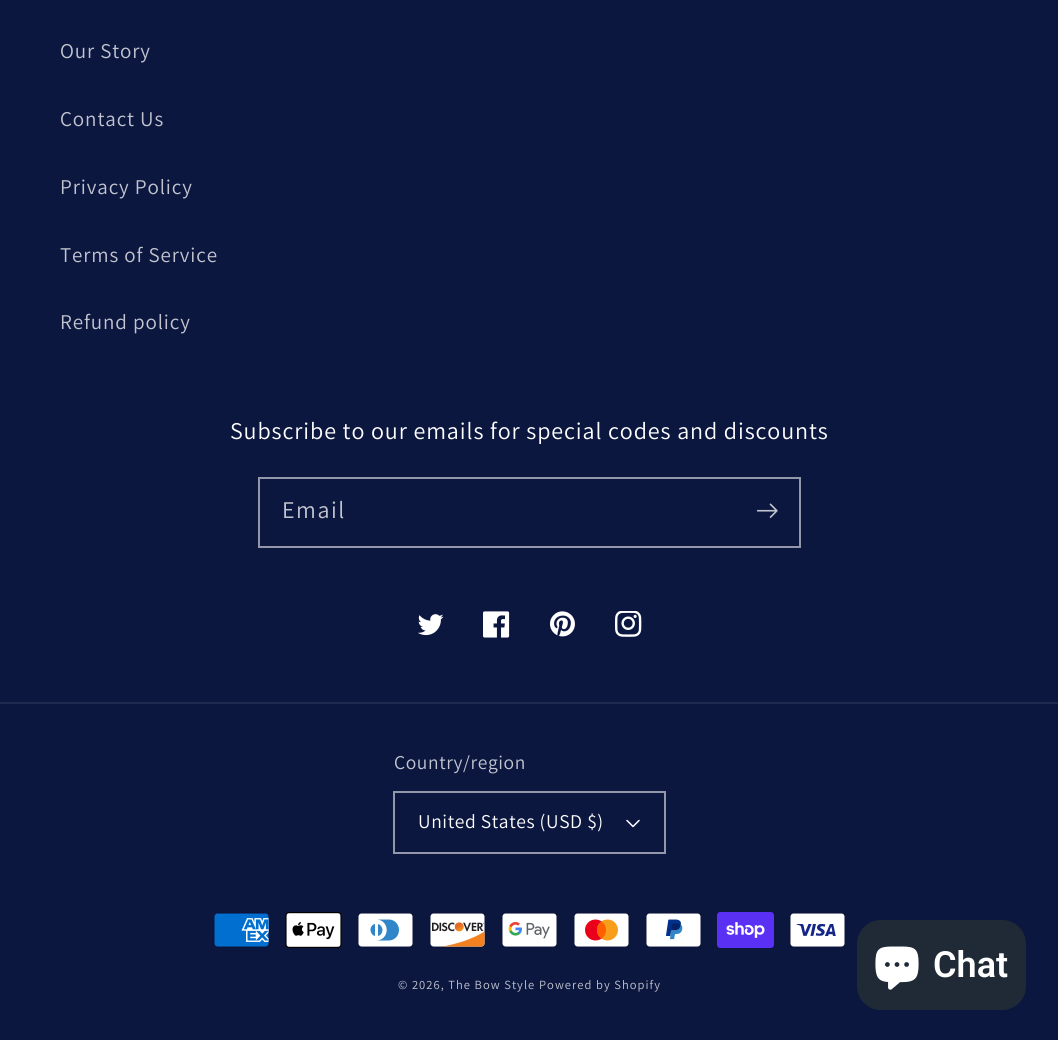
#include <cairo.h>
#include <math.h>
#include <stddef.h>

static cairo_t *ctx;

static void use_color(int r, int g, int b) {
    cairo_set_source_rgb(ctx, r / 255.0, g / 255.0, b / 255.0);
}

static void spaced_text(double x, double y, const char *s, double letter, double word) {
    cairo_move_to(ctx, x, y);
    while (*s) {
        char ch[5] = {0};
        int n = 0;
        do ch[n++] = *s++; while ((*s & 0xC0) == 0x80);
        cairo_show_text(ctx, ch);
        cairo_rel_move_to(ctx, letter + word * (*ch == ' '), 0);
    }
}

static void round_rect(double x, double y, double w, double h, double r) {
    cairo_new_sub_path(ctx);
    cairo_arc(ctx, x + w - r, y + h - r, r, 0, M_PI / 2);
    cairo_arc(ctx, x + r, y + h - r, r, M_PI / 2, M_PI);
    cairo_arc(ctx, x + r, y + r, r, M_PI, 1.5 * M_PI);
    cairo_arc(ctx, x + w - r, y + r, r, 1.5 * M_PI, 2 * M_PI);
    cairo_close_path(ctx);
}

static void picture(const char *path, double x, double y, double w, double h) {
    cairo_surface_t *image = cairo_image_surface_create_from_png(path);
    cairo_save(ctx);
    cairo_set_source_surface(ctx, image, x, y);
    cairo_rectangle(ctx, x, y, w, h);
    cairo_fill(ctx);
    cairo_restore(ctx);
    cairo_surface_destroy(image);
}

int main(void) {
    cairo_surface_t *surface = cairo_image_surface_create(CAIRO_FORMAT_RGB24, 1058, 1040);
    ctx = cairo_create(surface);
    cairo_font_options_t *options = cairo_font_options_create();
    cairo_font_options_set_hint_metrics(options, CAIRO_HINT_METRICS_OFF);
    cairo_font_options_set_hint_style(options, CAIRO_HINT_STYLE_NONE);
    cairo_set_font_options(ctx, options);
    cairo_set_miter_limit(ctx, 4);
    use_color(12, 23, 64);
    cairo_paint(ctx);
    use_color(12, 23, 60);
    cairo_rectangle(ctx, 0, 0, 1058, 1);
    cairo_fill(ctx);
    cairo_select_font_face(ctx, "Assistant", CAIRO_FONT_SLANT_NORMAL, CAIRO_FONT_WEIGHT_NORMAL);
    cairo_set_font_size(ctx, 21);
    use_color(194, 197, 207);
    spaced_text(60, 58, "Our Story", 0.9, 0);
    spaced_text(60, 126, "Contact Us", 0.9, 0);
    spaced_text(60, 194, "Privacy Policy", 0.9, 0);
    spaced_text(60, 262, "Terms of Service", 0.9, 0);
    spaced_text(60, 329, "Refund policy", 0.9, 0);
    cairo_set_font_size(ctx, 24);
    use_color(255, 255, 255);
    spaced_text(230, 439, "Subscribe to our emails for special codes and discounts", 0.9, 0);
    cairo_rectangle(ctx, 259, 478, 541, 69);
    use_color(146, 151, 169);
    cairo_stroke(ctx);
    use_color(194, 197, 207);
    spaced_text(282, 518, "Email", 1.5, 0);
    picture("img1.png", 756, 503, 22, 15);
    picture("img2.png", 418, 614, 26, 22);
    picture("img3.png", 483, 611, 27, 27);
    picture("img4.png", 550, 611, 25, 26);
    picture("img5.png", 615, 611, 27, 26);
    use_color(31, 42, 79);
    cairo_rectangle(ctx, 0, 702, 1058, 2);
    cairo_fill(ctx);
    cairo_set_font_size(ctx, 19.5);
    use_color(194, 197, 207);
    spaced_text(394, 769, "Country/region", 0.6, 0);
    cairo_rectangle(ctx, 394, 792, 271, 61);
    use_color(146, 151, 169);
    cairo_stroke(ctx);
    use_color(255, 255, 255);
    spaced_text(418, 828, "United States (USD $)", 0.6, 0);
    picture("img6.png", 626, 819, 14, 9);
    picture("img7.png", 213, 912, 57, 36);
    picture("img8.png", 285, 912, 57, 36);
    picture("img9.png", 357, 912, 57, 36);
    picture("img10.png", 429, 912, 57, 36);
    picture("img11.png", 501, 912, 57, 36);
    picture("img12.png", 573, 912, 57, 36);
    picture("img13.png", 645, 912, 57, 36);
    picture("img14.png", 717, 912, 57, 36);
    picture("img15.png", 789, 912, 57, 36);
    cairo_set_font_size(ctx, 12.5);
    use_color(194, 197, 207);
    spaced_text(398, 989, "© 2026, The Bow Style", 1.05, 0);
    spaced_text(539, 989, "Powered by Shopify", 1.05, 0);
    use_color(32, 42, 54);
    round_rect(857, 920, 169, 90, 24);
    cairo_fill(ctx);
    picture("img16.png", 875, 946, 44, 44);
    cairo_select_font_face(ctx, "Roboto SemiBold", CAIRO_FONT_SLANT_NORMAL, CAIRO_FONT_WEIGHT_NORMAL);
    cairo_set_font_size(ctx, 36);
    use_color(255, 255, 255);
    cairo_move_to(ctx, 933, 977);
    cairo_show_text(ctx, "Chat");
    cairo_surface_write_to_png(surface, "result.png");
    cairo_font_options_destroy(options);
    cairo_destroy(ctx);
    cairo_surface_destroy(surface);
    return 0;
}
